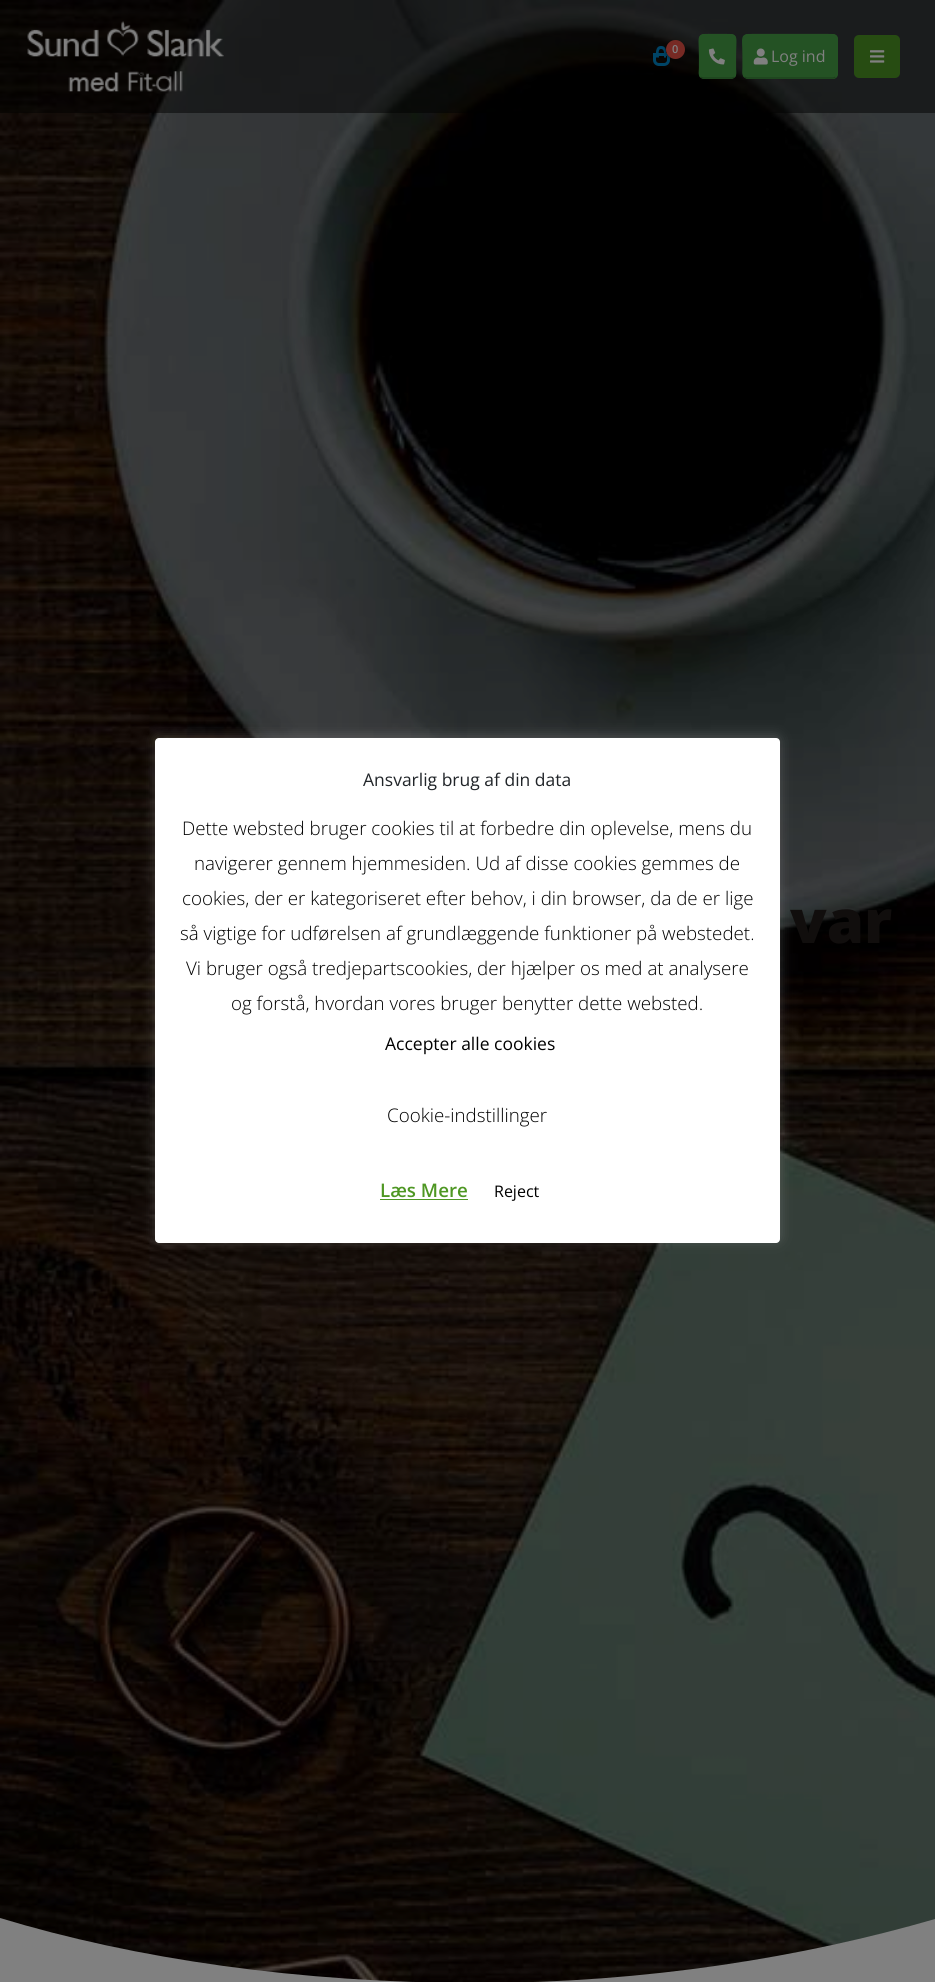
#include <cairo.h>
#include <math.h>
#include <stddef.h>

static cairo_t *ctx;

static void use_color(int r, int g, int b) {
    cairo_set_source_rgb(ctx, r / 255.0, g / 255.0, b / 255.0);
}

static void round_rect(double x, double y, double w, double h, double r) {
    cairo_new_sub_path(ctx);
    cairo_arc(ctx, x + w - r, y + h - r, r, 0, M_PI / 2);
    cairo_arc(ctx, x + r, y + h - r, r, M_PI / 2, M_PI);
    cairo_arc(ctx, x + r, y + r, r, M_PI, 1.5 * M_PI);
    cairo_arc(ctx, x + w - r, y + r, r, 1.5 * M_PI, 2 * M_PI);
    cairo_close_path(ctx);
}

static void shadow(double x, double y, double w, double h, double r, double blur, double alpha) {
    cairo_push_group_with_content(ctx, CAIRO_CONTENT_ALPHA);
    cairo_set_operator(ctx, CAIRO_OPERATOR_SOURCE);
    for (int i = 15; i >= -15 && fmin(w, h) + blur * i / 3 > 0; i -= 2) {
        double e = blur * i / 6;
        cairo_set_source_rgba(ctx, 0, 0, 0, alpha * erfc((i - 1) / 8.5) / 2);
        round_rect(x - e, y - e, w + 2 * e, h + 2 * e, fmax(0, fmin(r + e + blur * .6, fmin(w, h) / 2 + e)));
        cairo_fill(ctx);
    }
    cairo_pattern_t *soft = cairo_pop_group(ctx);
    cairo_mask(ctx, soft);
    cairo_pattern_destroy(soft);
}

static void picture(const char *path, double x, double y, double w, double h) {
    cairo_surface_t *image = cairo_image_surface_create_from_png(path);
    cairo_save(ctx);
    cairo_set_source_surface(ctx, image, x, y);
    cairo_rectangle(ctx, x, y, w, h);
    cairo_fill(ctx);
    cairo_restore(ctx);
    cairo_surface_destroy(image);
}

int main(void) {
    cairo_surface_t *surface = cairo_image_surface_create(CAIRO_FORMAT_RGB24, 935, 1982);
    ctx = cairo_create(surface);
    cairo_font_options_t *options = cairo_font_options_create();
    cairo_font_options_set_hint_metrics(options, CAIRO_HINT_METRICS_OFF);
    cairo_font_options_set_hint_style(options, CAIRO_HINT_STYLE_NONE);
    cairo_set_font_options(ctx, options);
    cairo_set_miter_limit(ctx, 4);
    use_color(255, 255, 255);
    cairo_paint(ctx);
    picture("img5.png", 0, 0, 935, 1982);
    use_color(172, 171, 171);
    shadow(155, 736, 625, 505, 4, 6, 0.3);
    use_color(255, 255, 255);
    round_rect(155, 738, 625, 505, 4);
    cairo_fill(ctx);
    cairo_select_font_face(ctx, "Open Sans", CAIRO_FONT_SLANT_NORMAL, CAIRO_FONT_WEIGHT_NORMAL);
    cairo_set_font_size(ctx, 17.5);
    use_color(33, 37, 41);
    cairo_move_to(ctx, 363, 786);
    cairo_show_text(ctx, "Ansvarlig brug af din data");
    cairo_select_font_face(ctx, "Open Sans Light", CAIRO_FONT_SLANT_NORMAL, CAIRO_FONT_WEIGHT_NORMAL);
    cairo_set_font_size(ctx, 18.75);
    use_color(0, 0, 0);
    cairo_move_to(ctx, 182, 835);
    cairo_show_text(ctx, "Dette websted bruger cookies til at forbedre din oplevelse, mens du");
    cairo_move_to(ctx, 194, 870);
    cairo_show_text(ctx, "navigerer gennem hjemmesiden. Ud af disse cookies gemmes de");
    cairo_move_to(ctx, 182, 905);
    cairo_show_text(ctx, "cookies, der er kategoriseret efter behov, i din browser, da de er lige");
    cairo_move_to(ctx, 180, 940);
    cairo_show_text(ctx, "så vigtige for udførelsen af grundlæggende funktioner på webstedet.");
    cairo_move_to(ctx, 186, 975);
    cairo_show_text(ctx, "Vi bruger også tredjepartscookies, der hjælper os med at analysere");
    cairo_move_to(ctx, 231, 1010);
    cairo_show_text(ctx, "og forstå, hvordan vores bruger benytter dette websted.");
    cairo_select_font_face(ctx, "Open Sans", CAIRO_FONT_SLANT_NORMAL, CAIRO_FONT_WEIGHT_NORMAL);
    cairo_set_font_size(ctx, 17.5);
    cairo_move_to(ctx, 385, 1050);
    cairo_show_text(ctx, "Accepter alle cookies");
    cairo_select_font_face(ctx, "Open Sans Light", CAIRO_FONT_SLANT_NORMAL, CAIRO_FONT_WEIGHT_NORMAL);
    cairo_set_font_size(ctx, 18.75);
    cairo_move_to(ctx, 387, 1122);
    cairo_show_text(ctx, "Cookie-indstillinger");
    cairo_select_font_face(ctx, "Open Sans SemiBold", CAIRO_FONT_SLANT_NORMAL, CAIRO_FONT_WEIGHT_NORMAL);
    use_color(78, 151, 35);
    cairo_move_to(ctx, 380, 1197);
    cairo_show_text(ctx, "Læs Mere");
    cairo_rectangle(ctx, 380, 1199, 88, 1);
    cairo_fill(ctx);
    cairo_select_font_face(ctx, "Open Sans", CAIRO_FONT_SLANT_NORMAL, CAIRO_FONT_WEIGHT_NORMAL);
    cairo_set_font_size(ctx, 16);
    use_color(0, 0, 0);
    cairo_move_to(ctx, 494, 1197);
    cairo_show_text(ctx, "Reject");
    cairo_set_source_rgba(ctx, 0, 0, 0, 0.5);
    cairo_rectangle(ctx, 0, 0, 935, 113);
    cairo_fill(ctx);
    picture("img1.png", 27, 21, 197, 71);
    cairo_new_path(ctx);
    cairo_move_to(ctx, 654.5, 54.5);
    cairo_line_to(ctx, 668.5, 54.5);
    cairo_line_to(ctx, 668.5, 60);
    cairo_curve_to(ctx, 668.5, 62.5, 666.5, 64.5, 664, 64.5);
    cairo_line_to(ctx, 659, 64.5);
    cairo_curve_to(ctx, 656.5, 64.5, 654.5, 62.5, 654.5, 60);
    cairo_close_path(ctx);
    use_color(0, 68, 102);
    cairo_set_line_width(ctx, 3);
    cairo_stroke(ctx);
    cairo_set_fill_rule(ctx, CAIRO_FILL_RULE_EVEN_ODD);
    cairo_new_path(ctx);
    cairo_move_to(ctx, 661, 46);
    cairo_curve_to(ctx, 667.5, 46, 666, 53.5, 666, 57.5);
    cairo_line_to(ctx, 656, 57.5);
    cairo_curve_to(ctx, 656, 53.5, 655, 46, 661, 46);
    cairo_close_path(ctx);
    cairo_move_to(ctx, 661, 49);
    cairo_curve_to(ctx, 665, 49, 664, 55, 664, 57.5);
    cairo_line_to(ctx, 659, 57.5);
    cairo_curve_to(ctx, 659, 55, 657.5, 49, 661, 49);
    cairo_close_path(ctx);
    cairo_fill(ctx);
    use_color(0, 0, 0);
    shadow(665, 41, 19, 19, 9.5, 1, 0.3);
    use_color(119, 42, 36);
    cairo_arc(ctx, 675.5, 49.5, 9.5, 0, 2 * M_PI);
    cairo_fill(ctx);
    cairo_select_font_face(ctx, "Open Sans SemiBold", CAIRO_FONT_SLANT_NORMAL, CAIRO_FONT_WEIGHT_NORMAL);
    cairo_set_font_size(ctx, 11);
    use_color(128, 128, 128);
    cairo_move_to(ctx, 672, 53);
    cairo_show_text(ctx, "0");
    use_color(36, 82, 36);
    round_rect(699, 34, 37, 45, 5);
    cairo_fill(ctx);
    cairo_new_path(ctx);
    cairo_move_to(ctx, 734.5, 77);
    cairo_curve_to(ctx, 733.5, 77.5, 732.5, 78, 731, 78);
    cairo_line_to(ctx, 704, 78);
    cairo_curve_to(ctx, 702.5, 78, 701.5, 77.5, 700.5, 77);
    use_color(28, 64, 28);
    cairo_set_line_width(ctx, 1.2);
    cairo_stroke(ctx);
    cairo_new_path(ctx);
    cairo_move_to(ctx, 700.5, 77);
    cairo_curve_to(ctx, 698.5, 74.5, 699.5, 70.5, 699.5, 68);
    cairo_line_to(ctx, 699.5, 56);
    cairo_curve_to(ctx, 699.5, 32.5, 695, 34.5, 717.5, 34.5);
    cairo_curve_to(ctx, 740, 34.5, 735.5, 32.5, 735.5, 56);
    cairo_line_to(ctx, 735.5, 68);
    cairo_curve_to(ctx, 735.5, 70.5, 736.5, 74.5, 734.5, 77);
    use_color(36, 82, 36);
    cairo_stroke(ctx);
    picture("img2.png", 708, 48, 17, 17);
    round_rect(743, 34, 95, 45, 5);
    cairo_fill(ctx);
    cairo_new_path(ctx);
    cairo_move_to(ctx, 835.5, 77);
    cairo_line_to(ctx, 833, 78);
    cairo_line_to(ctx, 747, 78);
    cairo_line_to(ctx, 744.5, 77);
    use_color(28, 64, 28);
    cairo_stroke(ctx);
    cairo_new_path(ctx);
    cairo_move_to(ctx, 744.5, 77);
    cairo_curve_to(ctx, 742, 74.5, 743, 70.5, 743, 68);
    cairo_line_to(ctx, 743, 56);
    cairo_curve_to(ctx, 743, 32.5, 738.5, 34.5, 761.5, 34.5);
    cairo_line_to(ctx, 818.5, 34.5);
    cairo_curve_to(ctx, 841.5, 34.5, 837, 32.5, 837, 56);
    cairo_line_to(ctx, 837, 68);
    cairo_curve_to(ctx, 837, 70.5, 838, 74.5, 835.5, 77);
    use_color(36, 82, 36);
    cairo_stroke(ctx);
    picture("img3.png", 753, 48, 15, 17);
    cairo_select_font_face(ctx, "Open Sans", CAIRO_FONT_SLANT_NORMAL, CAIRO_FONT_WEIGHT_NORMAL);
    cairo_set_font_size(ctx, 16);
    use_color(128, 128, 128);
    cairo_move_to(ctx, 771, 62);
    cairo_show_text(ctx, "Log ind");
    use_color(39, 76, 18);
    round_rect(854, 35, 46, 43, 5);
    cairo_fill(ctx);
    picture("img4.png", 870, 50, 15, 13);
    cairo_select_font_face(ctx, "Open Sans ExtraBold", CAIRO_FONT_SLANT_NORMAL, CAIRO_FONT_WEIGHT_NORMAL);
    cairo_set_font_size(ctx, 60);
    use_color(17, 14, 13);
    cairo_move_to(ctx, 790, 943);
    cairo_show_text(ctx, "var");
    use_color(128, 128, 128);
    cairo_set_fill_rule(ctx, CAIRO_FILL_RULE_WINDING);
    cairo_new_path(ctx);
    cairo_move_to(ctx, 0, 1918);
    cairo_line_to(ctx, 0, 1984);
    cairo_line_to(ctx, 935, 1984);
    cairo_line_to(ctx, 935, 1919);
    cairo_curve_to(ctx, 804, 1957, 646, 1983, 477, 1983);
    cairo_curve_to(ctx, 300, 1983, 135, 1959, 0, 1918);
    cairo_close_path(ctx);
    cairo_fill(ctx);
    cairo_surface_write_to_png(surface, "result.png");
    cairo_font_options_destroy(options);
    cairo_destroy(ctx);
    cairo_surface_destroy(surface);
    return 0;
}
